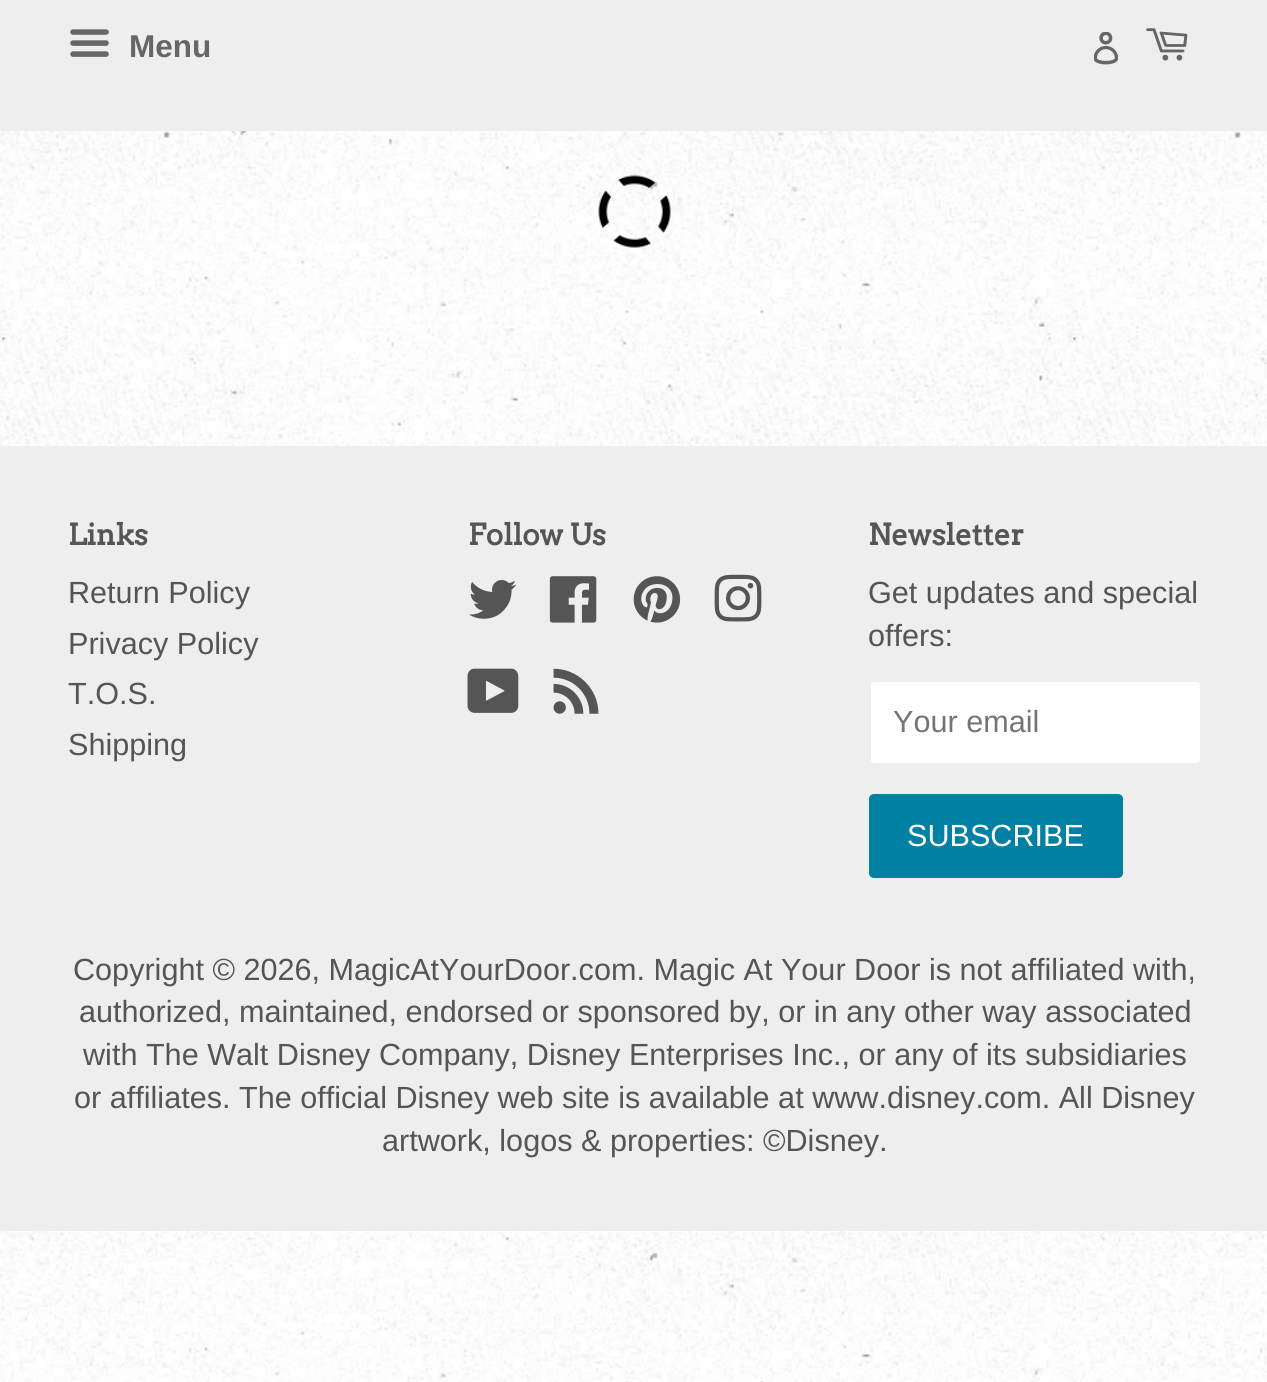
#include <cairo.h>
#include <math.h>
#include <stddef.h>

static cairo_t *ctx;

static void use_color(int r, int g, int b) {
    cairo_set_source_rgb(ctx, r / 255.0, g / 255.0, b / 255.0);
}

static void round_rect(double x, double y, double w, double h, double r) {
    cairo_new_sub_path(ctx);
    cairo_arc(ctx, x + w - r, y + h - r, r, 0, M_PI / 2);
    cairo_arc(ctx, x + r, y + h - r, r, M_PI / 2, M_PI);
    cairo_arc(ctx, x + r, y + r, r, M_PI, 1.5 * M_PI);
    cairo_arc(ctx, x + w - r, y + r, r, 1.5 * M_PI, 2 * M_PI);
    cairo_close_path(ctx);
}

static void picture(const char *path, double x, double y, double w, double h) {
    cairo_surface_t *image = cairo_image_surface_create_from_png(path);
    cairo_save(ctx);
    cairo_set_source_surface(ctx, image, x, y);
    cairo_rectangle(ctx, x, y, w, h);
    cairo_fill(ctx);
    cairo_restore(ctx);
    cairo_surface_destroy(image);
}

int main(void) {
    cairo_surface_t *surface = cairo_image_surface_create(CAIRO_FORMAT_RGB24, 1267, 1382);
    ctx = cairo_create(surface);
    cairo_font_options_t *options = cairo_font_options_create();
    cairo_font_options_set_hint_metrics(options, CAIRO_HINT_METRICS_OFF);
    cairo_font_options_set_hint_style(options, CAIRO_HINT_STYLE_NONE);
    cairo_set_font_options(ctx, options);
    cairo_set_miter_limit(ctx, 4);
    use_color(255, 255, 255);
    cairo_paint(ctx);
    picture("img1.png", 0, 1231, 1267, 151);
    picture("img2.png", 0, 131, 1267, 315);
    use_color(238, 238, 238);
    cairo_rectangle(ctx, 0, 0, 1267, 131);
    cairo_fill(ctx);
    picture("img3.png", 70, 29, 39, 28);
    cairo_select_font_face(ctx, "Liberation Sans", CAIRO_FONT_SLANT_NORMAL, CAIRO_FONT_WEIGHT_BOLD);
    cairo_set_font_size(ctx, 31.5);
    use_color(102, 102, 102);
    cairo_move_to(ctx, 129, 57);
    cairo_show_text(ctx, "Menu");
    picture("img4.png", 1094, 32, 24, 33);
    picture("img5.png", 1146, 28, 42, 33);
    picture("img6.png", 598, 175, 73, 73);
    use_color(238, 238, 238);
    cairo_rectangle(ctx, 0, 446, 1267, 785);
    cairo_fill(ctx);
    cairo_select_font_face(ctx, "Arvo", CAIRO_FONT_SLANT_NORMAL, CAIRO_FONT_WEIGHT_BOLD);
    cairo_set_font_size(ctx, 29.25);
    use_color(85, 85, 85);
    cairo_move_to(ctx, 68, 545);
    cairo_show_text(ctx, "Links");
    cairo_select_font_face(ctx, "Liberation Sans", CAIRO_FONT_SLANT_NORMAL, CAIRO_FONT_WEIGHT_NORMAL);
    cairo_set_font_size(ctx, 30.6);
    cairo_move_to(ctx, 68, 603);
    cairo_show_text(ctx, "Return Policy");
    cairo_move_to(ctx, 68, 654);
    cairo_show_text(ctx, "Privacy Policy");
    cairo_move_to(ctx, 68, 704);
    cairo_show_text(ctx, "T.O.S.");
    cairo_move_to(ctx, 68, 755);
    cairo_show_text(ctx, "Shipping");
    cairo_select_font_face(ctx, "Arvo", CAIRO_FONT_SLANT_NORMAL, CAIRO_FONT_WEIGHT_BOLD);
    cairo_set_font_size(ctx, 29.25);
    cairo_move_to(ctx, 468, 545);
    cairo_show_text(ctx, "Follow Us");
    picture("img7.png", 469, 580, 48, 39);
    picture("img8.png", 549, 576, 48, 47);
    picture("img9.png", 633, 576, 48, 47);
    picture("img10.png", 714, 574, 48, 48);
    picture("img11.png", 467, 668, 52, 45);
    picture("img12.png", 553, 668, 46, 46);
    cairo_move_to(ctx, 868, 545);
    cairo_show_text(ctx, "Newsletter");
    cairo_select_font_face(ctx, "Liberation Sans", CAIRO_FONT_SLANT_NORMAL, CAIRO_FONT_WEIGHT_NORMAL);
    cairo_set_font_size(ctx, 30.6);
    cairo_move_to(ctx, 868, 603);
    cairo_show_text(ctx, "Get updates and special");
    cairo_move_to(ctx, 868, 646);
    cairo_show_text(ctx, "offers:");
    use_color(255, 255, 255);
    round_rect(870, 681, 331, 83, 4);
    cairo_fill_preserve(ctx);
    use_color(238, 238, 238);
    cairo_stroke(ctx);
    use_color(117, 117, 117);
    cairo_move_to(ctx, 893, 732);
    cairo_show_text(ctx, "Your email");
    use_color(0, 129, 163);
    round_rect(869, 794, 254, 84, 5);
    cairo_fill(ctx);
    use_color(255, 255, 255);
    cairo_move_to(ctx, 907, 846);
    cairo_show_text(ctx, "SUBSCRIBE");
    use_color(85, 85, 85);
    cairo_move_to(ctx, 73, 980);
    cairo_show_text(ctx, "Copyright © 2026, MagicAtYourDoor.com. Magic At Your Door is not affiliated with,");
    cairo_move_to(ctx, 79, 1022);
    cairo_show_text(ctx, "authorized, maintained, endorsed or sponsored by, or in any other way associated");
    cairo_move_to(ctx, 83, 1065);
    cairo_show_text(ctx, "with The Walt Disney Company, Disney Enterprises Inc., or any of its subsidiaries");
    cairo_move_to(ctx, 74, 1108);
    cairo_show_text(ctx, "or affiliates. The official Disney web site is available at www.disney.com. All Disney");
    cairo_move_to(ctx, 382, 1151);
    cairo_show_text(ctx, "artwork, logos & properties: ©Disney.");
    cairo_surface_write_to_png(surface, "result.png");
    cairo_font_options_destroy(options);
    cairo_destroy(ctx);
    cairo_surface_destroy(surface);
    return 0;
}
